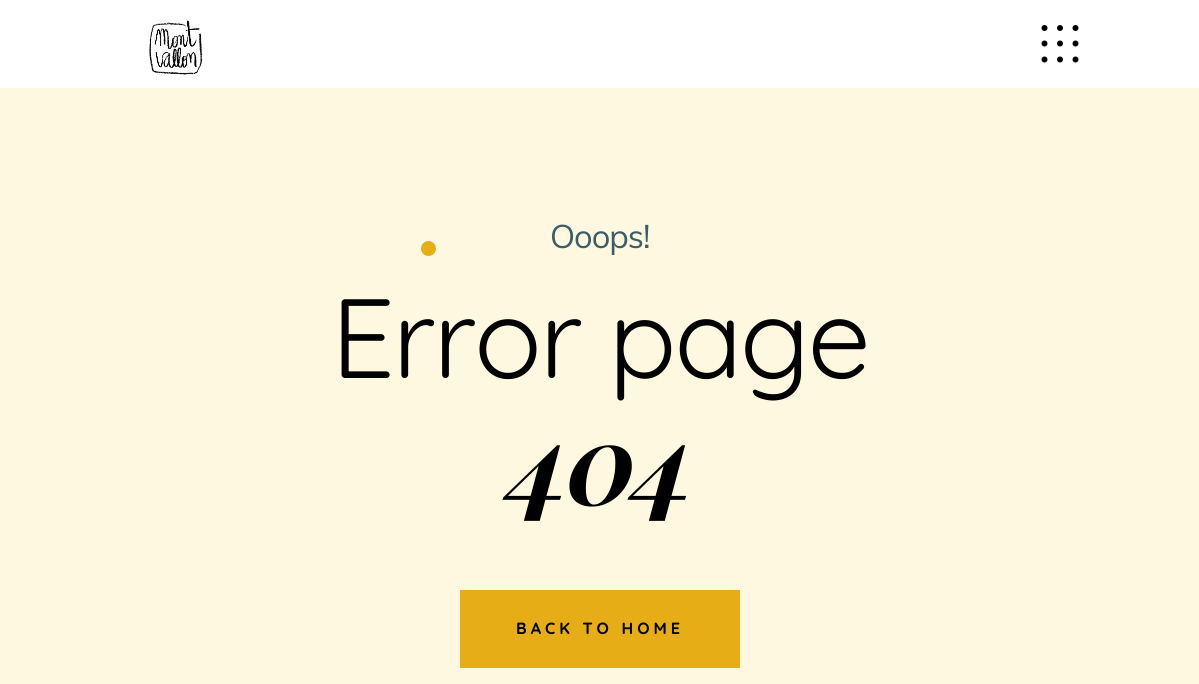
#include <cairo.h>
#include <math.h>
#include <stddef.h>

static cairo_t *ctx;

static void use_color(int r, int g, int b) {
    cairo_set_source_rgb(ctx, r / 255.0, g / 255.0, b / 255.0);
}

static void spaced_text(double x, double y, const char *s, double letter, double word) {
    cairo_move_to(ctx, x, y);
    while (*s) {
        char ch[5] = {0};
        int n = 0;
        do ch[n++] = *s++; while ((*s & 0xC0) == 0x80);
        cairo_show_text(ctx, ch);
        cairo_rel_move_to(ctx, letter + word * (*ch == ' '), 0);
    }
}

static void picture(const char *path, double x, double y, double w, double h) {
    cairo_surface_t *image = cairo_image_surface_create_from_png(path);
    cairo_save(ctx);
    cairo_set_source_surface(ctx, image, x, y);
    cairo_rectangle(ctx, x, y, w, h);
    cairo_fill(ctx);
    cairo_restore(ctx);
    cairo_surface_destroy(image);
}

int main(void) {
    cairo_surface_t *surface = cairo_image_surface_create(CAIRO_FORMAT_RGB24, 1199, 684);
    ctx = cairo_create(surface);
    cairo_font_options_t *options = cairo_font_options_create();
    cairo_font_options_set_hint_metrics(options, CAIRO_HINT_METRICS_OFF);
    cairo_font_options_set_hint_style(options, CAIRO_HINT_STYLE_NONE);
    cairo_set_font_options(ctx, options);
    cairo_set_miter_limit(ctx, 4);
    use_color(255, 248, 224);
    cairo_paint(ctx);
    use_color(255, 255, 255);
    cairo_rectangle(ctx, 0, 0, 1199, 88);
    cairo_fill(ctx);
    picture("img1.png", 146, 20, 57, 55);
    picture("img2.png", 1041, 25, 38, 38);
    cairo_select_font_face(ctx, "Muli", CAIRO_FONT_SLANT_NORMAL, CAIRO_FONT_WEIGHT_NORMAL);
    cairo_set_font_size(ctx, 32.5);
    use_color(59, 93, 105);
    spaced_text(550, 248, "Ooops!", -1, 0);
    cairo_select_font_face(ctx, "Quicksand", CAIRO_FONT_SLANT_NORMAL, CAIRO_FONT_WEIGHT_NORMAL);
    cairo_set_font_size(ctx, 112.5);
    use_color(0, 0, 0);
    spaced_text(331, 378, "Error page", -2.5, 0);
    cairo_select_font_face(ctx, "Playfair Display", CAIRO_FONT_SLANT_ITALIC, CAIRO_FONT_WEIGHT_BOLD);
    spaced_text(509, 505, "404", -2.5, 0);
    use_color(230, 173, 22);
    cairo_rectangle(ctx, 460, 590, 280, 78);
    cairo_fill(ctx);
    cairo_select_font_face(ctx, "Quicksand", CAIRO_FONT_SLANT_NORMAL, CAIRO_FONT_WEIGHT_BOLD);
    cairo_set_font_size(ctx, 16.25);
    use_color(0, 0, 0);
    spaced_text(516, 634, "BACK TO HOME", 4, 0);
    use_color(230, 173, 22);
    cairo_new_path(ctx);
    cairo_arc(ctx, 428.5, 248.5, 7.5, 0, 2 * M_PI);
    cairo_fill(ctx);
    cairo_surface_write_to_png(surface, "result.png");
    cairo_font_options_destroy(options);
    cairo_destroy(ctx);
    cairo_surface_destroy(surface);
    return 0;
}
